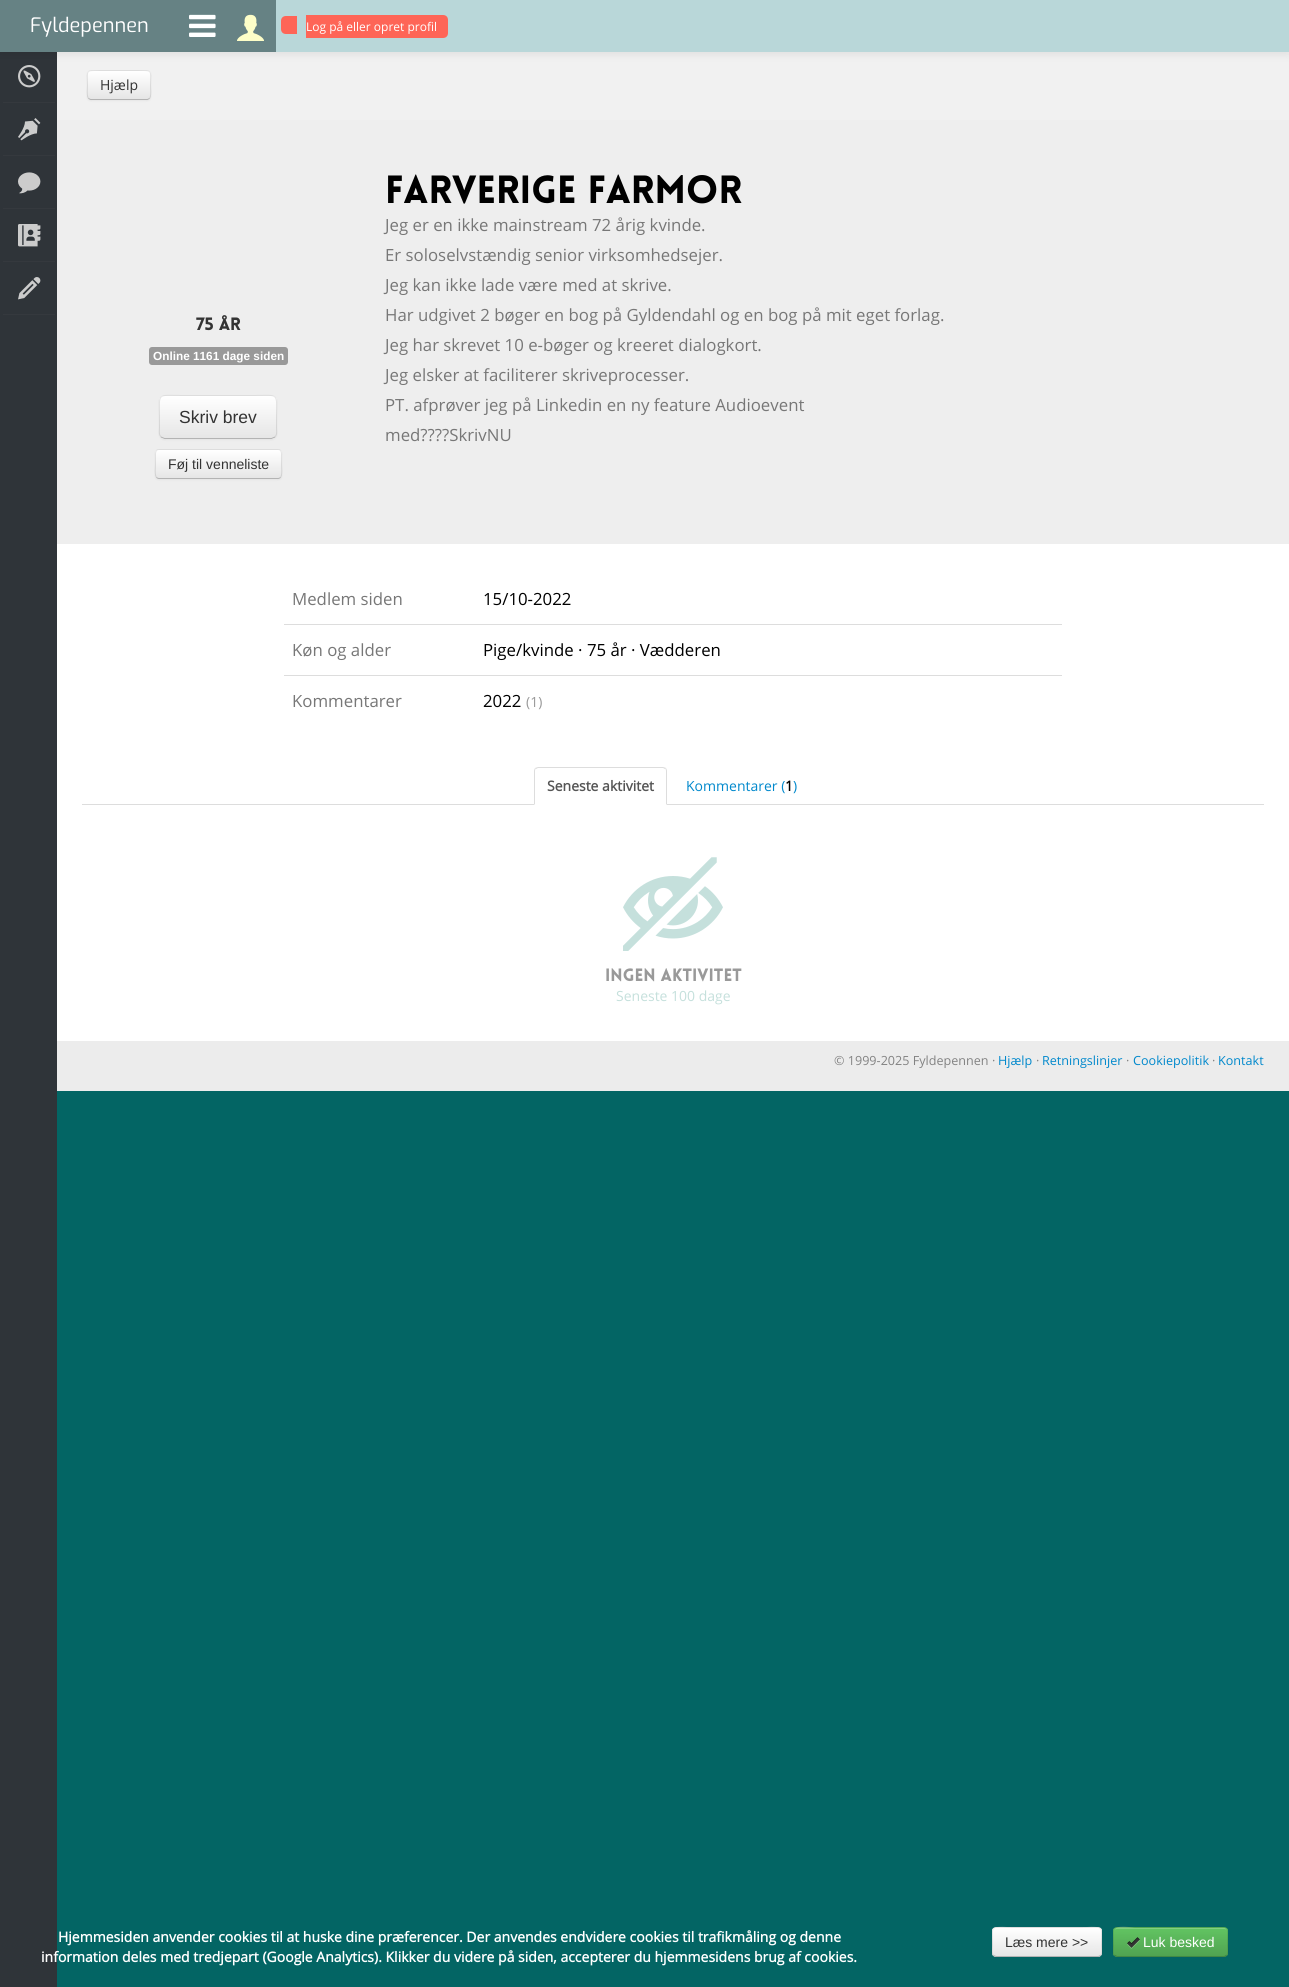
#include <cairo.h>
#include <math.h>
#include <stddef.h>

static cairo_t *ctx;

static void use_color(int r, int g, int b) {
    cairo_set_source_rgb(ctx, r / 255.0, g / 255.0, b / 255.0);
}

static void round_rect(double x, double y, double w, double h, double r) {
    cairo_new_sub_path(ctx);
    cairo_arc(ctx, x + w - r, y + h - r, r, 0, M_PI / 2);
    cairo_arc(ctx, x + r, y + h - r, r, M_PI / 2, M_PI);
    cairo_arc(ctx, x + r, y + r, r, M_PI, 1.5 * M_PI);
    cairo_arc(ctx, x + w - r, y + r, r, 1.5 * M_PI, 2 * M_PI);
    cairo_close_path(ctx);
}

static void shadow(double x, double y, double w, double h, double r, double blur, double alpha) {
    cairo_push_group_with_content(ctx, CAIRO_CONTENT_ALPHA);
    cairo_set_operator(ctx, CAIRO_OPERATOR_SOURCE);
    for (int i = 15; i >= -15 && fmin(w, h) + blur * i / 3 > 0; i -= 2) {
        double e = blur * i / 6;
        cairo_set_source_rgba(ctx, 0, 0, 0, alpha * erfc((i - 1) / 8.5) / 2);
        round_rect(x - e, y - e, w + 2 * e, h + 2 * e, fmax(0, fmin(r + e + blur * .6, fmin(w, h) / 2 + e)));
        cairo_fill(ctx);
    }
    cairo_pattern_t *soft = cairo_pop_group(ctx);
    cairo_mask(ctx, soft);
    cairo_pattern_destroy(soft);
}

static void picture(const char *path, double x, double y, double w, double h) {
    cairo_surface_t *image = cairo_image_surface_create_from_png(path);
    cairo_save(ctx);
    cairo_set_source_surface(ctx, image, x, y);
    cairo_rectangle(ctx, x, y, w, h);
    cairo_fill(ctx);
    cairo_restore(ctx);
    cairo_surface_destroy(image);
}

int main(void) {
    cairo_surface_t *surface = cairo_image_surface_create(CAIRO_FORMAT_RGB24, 1289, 1987);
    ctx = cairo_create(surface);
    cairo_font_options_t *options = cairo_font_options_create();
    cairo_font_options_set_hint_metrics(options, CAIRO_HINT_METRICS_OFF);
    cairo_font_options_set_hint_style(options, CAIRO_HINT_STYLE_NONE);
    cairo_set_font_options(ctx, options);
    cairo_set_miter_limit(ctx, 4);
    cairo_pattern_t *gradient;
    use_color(3, 101, 100);
    cairo_paint(ctx);
    use_color(47, 52, 57);
    cairo_rectangle(ctx, 0, 52, 57, 1935);
    cairo_fill(ctx);
    picture("img3.png", 18, 65, 23, 23);
    use_color(241, 241, 241);
    cairo_rectangle(ctx, 57, 52, 1232, 68);
    cairo_fill(ctx);
    use_color(0, 0, 0);
    shadow(0, 1, 1289, 52, 0, 5, 0.1);
    use_color(185, 215, 217);
    cairo_rectangle(ctx, 276, 0, 1013, 52);
    cairo_fill(ctx);
    use_color(102, 130, 132);
    cairo_rectangle(ctx, 0, 0, 276, 52);
    cairo_fill(ctx);
    cairo_select_font_face(ctx, "Exo", CAIRO_FONT_SLANT_NORMAL, CAIRO_FONT_WEIGHT_NORMAL);
    cairo_set_font_size(ctx, 20);
    use_color(255, 255, 255);
    cairo_move_to(ctx, 30, 32);
    cairo_show_text(ctx, "Fyldepennen");
    picture("img1.png", 189, 14, 27, 23);
    picture("img2.png", 237, 14, 27, 27);
    use_color(254, 101, 87);
    cairo_new_path(ctx);
    cairo_move_to(ctx, 306, 15);
    cairo_line_to(ctx, 443, 15);
    cairo_curve_to(ctx, 446, 15, 448, 17, 448, 20);
    cairo_line_to(ctx, 448, 33);
    cairo_curve_to(ctx, 448, 36, 446, 38, 443, 38);
    cairo_line_to(ctx, 306, 38);
    cairo_close_path(ctx);
    cairo_fill(ctx);
    cairo_select_font_face(ctx, "Open Sans", CAIRO_FONT_SLANT_NORMAL, CAIRO_FONT_WEIGHT_NORMAL);
    cairo_set_font_size(ctx, 12);
    use_color(255, 255, 255);
    cairo_move_to(ctx, 306, 31);
    cairo_show_text(ctx, "Log på eller opret profil");
    use_color(254, 101, 87);
    cairo_new_path(ctx);
    cairo_move_to(ctx, 286, 16);
    cairo_line_to(ctx, 297, 16);
    cairo_line_to(ctx, 297, 34);
    cairo_line_to(ctx, 286, 34);
    cairo_curve_to(ctx, 283, 34, 281, 32, 281, 29);
    cairo_line_to(ctx, 281, 21);
    cairo_curve_to(ctx, 281, 18, 283, 16, 286, 16);
    cairo_close_path(ctx);
    cairo_fill(ctx);
    use_color(53, 57, 62);
    cairo_rectangle(ctx, 3, 102, 52, 1);
    cairo_fill(ctx);
    cairo_rectangle(ctx, 3, 155, 52, 1);
    cairo_fill(ctx);
    picture("img4.png", 18, 118, 23, 23);
    cairo_rectangle(ctx, 3, 208, 52, 1);
    cairo_fill(ctx);
    picture("img5.png", 18, 172, 23, 22);
    cairo_rectangle(ctx, 3, 261, 52, 1);
    cairo_fill(ctx);
    picture("img6.png", 18, 224, 23, 23);
    cairo_rectangle(ctx, 3, 314, 52, 1);
    cairo_fill(ctx);
    picture("img7.png", 18, 277, 23, 23);
    use_color(255, 255, 255);
    cairo_rectangle(ctx, 57, 544, 1232, 497);
    cairo_fill(ctx);
    use_color(0, 0, 0);
    shadow(87, 71, 64, 30, 4, 1, 0.05);
    use_color(245, 245, 245);
    round_rect(87, 70, 64, 30, 4);
    cairo_fill(ctx);
    cairo_save(ctx);
    round_rect(87, 70, 64, 30, 4);
    cairo_clip(ctx);
    gradient = cairo_pattern_create_linear(119, 71, 119, 99);
    cairo_pattern_add_color_stop_rgba(gradient, 0, 1, 1, 1, 1);
    cairo_pattern_add_color_stop_rgba(gradient, 1, 0.902, 0.902, 0.902, 1);
    cairo_set_source(ctx, gradient);
    cairo_pattern_destroy(gradient);
    cairo_rectangle(ctx, 87, 71, 64, 28);
    cairo_fill(ctx);
    cairo_restore(ctx);
    use_color(255, 255, 255);
    cairo_new_path(ctx);
    cairo_move_to(ctx, 91, 72);
    cairo_line_to(ctx, 147, 72);
    cairo_curve_to(ctx, 149, 72, 150, 73, 150, 75);
    cairo_curve_to(ctx, 150, 69, 142, 71, 138, 71);
    cairo_line_to(ctx, 100, 71);
    cairo_curve_to(ctx, 96, 71, 88, 69, 88, 75);
    cairo_curve_to(ctx, 88, 73, 89, 72, 91, 72);
    cairo_close_path(ctx);
    cairo_fill(ctx);
    cairo_new_path(ctx);
    cairo_move_to(ctx, 149.5, 98.5);
    cairo_line_to(ctx, 147.5, 99.5);
    cairo_line_to(ctx, 90.5, 99.5);
    cairo_line_to(ctx, 88.5, 98.5);
    use_color(179, 179, 179);
    cairo_set_line_width(ctx, 1);
    cairo_stroke(ctx);
    cairo_new_path(ctx);
    cairo_move_to(ctx, 88.5, 98.5);
    cairo_curve_to(ctx, 86.5, 96.5, 87.5, 88, 87.5, 85);
    cairo_curve_to(ctx, 87.5, 69.5, 85, 70.5, 100.5, 70.5);
    cairo_line_to(ctx, 137.5, 70.5);
    cairo_curve_to(ctx, 153, 70.5, 150.5, 69.5, 150.5, 85);
    cairo_curve_to(ctx, 150.5, 88, 151.5, 96.5, 149.5, 98.5);
    cairo_set_source_rgba(ctx, 0, 0, 0, 0.1);
    cairo_stroke(ctx);
    cairo_set_font_size(ctx, 14);
    use_color(51, 51, 51);
    cairo_move_to(ctx, 100, 90);
    cairo_show_text(ctx, "Hjælp");
    use_color(238, 238, 238);
    cairo_rectangle(ctx, 57, 120, 1232, 424);
    cairo_fill(ctx);
    cairo_select_font_face(ctx, "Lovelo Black", CAIRO_FONT_SLANT_NORMAL, CAIRO_FONT_WEIGHT_NORMAL);
    cairo_set_font_size(ctx, 17.5);
    use_color(51, 51, 51);
    cairo_move_to(ctx, 196, 330);
    cairo_show_text(ctx, "75 år");
    use_color(153, 153, 153);
    round_rect(149, 347, 139, 18, 3);
    cairo_fill(ctx);
    cairo_select_font_face(ctx, "Liberation Sans", CAIRO_FONT_SLANT_NORMAL, CAIRO_FONT_WEIGHT_BOLD);
    cairo_set_font_size(ctx, 11.8);
    use_color(255, 255, 255);
    cairo_move_to(ctx, 153, 360);
    cairo_show_text(ctx, "Online 1161 dage siden");
    use_color(0, 0, 0);
    shadow(159, 396, 118, 44, 6, 1, 0.05);
    use_color(245, 245, 245);
    round_rect(159, 395, 118, 44, 6);
    cairo_fill(ctx);
    cairo_save(ctx);
    round_rect(159, 395, 118, 44, 6);
    cairo_clip(ctx);
    gradient = cairo_pattern_create_linear(218, 396, 218, 438);
    cairo_pattern_add_color_stop_rgba(gradient, 0, 1, 1, 1, 1);
    cairo_pattern_add_color_stop_rgba(gradient, 1, 0.902, 0.902, 0.902, 1);
    cairo_set_source(ctx, gradient);
    cairo_pattern_destroy(gradient);
    cairo_rectangle(ctx, 159, 396, 118, 42);
    cairo_fill(ctx);
    cairo_restore(ctx);
    cairo_new_path(ctx);
    cairo_move_to(ctx, 275, 437);
    cairo_line_to(ctx, 271.5, 438.5);
    cairo_line_to(ctx, 164.5, 438.5);
    cairo_line_to(ctx, 161, 437);
    use_color(179, 179, 179);
    cairo_stroke(ctx);
    cairo_new_path(ctx);
    cairo_move_to(ctx, 161, 437);
    cairo_curve_to(ctx, 158.5, 434.5, 159.5, 430.5, 159.5, 427.5);
    cairo_line_to(ctx, 159.5, 417);
    cairo_curve_to(ctx, 159.5, 392, 156.5, 395.5, 182.5, 395.5);
    cairo_line_to(ctx, 253.5, 395.5);
    cairo_curve_to(ctx, 279.5, 395.5, 276.5, 392, 276.5, 417);
    cairo_line_to(ctx, 276.5, 427.5);
    cairo_curve_to(ctx, 276.5, 430.5, 277.5, 434.5, 275, 437);
    cairo_set_source_rgba(ctx, 0, 0, 0, 0.1);
    cairo_stroke(ctx);
    cairo_select_font_face(ctx, "Liberation Sans", CAIRO_FONT_SLANT_NORMAL, CAIRO_FONT_WEIGHT_NORMAL);
    cairo_set_font_size(ctx, 17.5);
    use_color(51, 51, 51);
    cairo_move_to(ctx, 179, 423);
    cairo_show_text(ctx, "Skriv brev");
    use_color(0, 0, 0);
    shadow(155, 450, 127, 30, 4, 1, 0.05);
    use_color(245, 245, 245);
    round_rect(155, 449, 127, 30, 4);
    cairo_fill(ctx);
    cairo_save(ctx);
    round_rect(155, 449, 127, 30, 4);
    cairo_clip(ctx);
    gradient = cairo_pattern_create_linear(219, 450, 219, 478);
    cairo_pattern_add_color_stop_rgba(gradient, 0, 1, 1, 1, 1);
    cairo_pattern_add_color_stop_rgba(gradient, 1, 0.902, 0.902, 0.902, 1);
    cairo_set_source(ctx, gradient);
    cairo_pattern_destroy(gradient);
    cairo_rectangle(ctx, 155, 450, 127, 28);
    cairo_fill(ctx);
    cairo_restore(ctx);
    cairo_new_path(ctx);
    cairo_move_to(ctx, 280.5, 477.5);
    cairo_curve_to(ctx, 280, 478, 279, 478.5, 278, 478.5);
    cairo_line_to(ctx, 159, 478.5);
    cairo_curve_to(ctx, 158, 478.5, 157, 478, 156.5, 477.5);
    use_color(179, 179, 179);
    cairo_stroke(ctx);
    cairo_new_path(ctx);
    cairo_move_to(ctx, 156.5, 477.5);
    cairo_curve_to(ctx, 154.5, 475.5, 155.5, 467, 155.5, 464);
    cairo_line_to(ctx, 155.5, 456.5);
    cairo_curve_to(ctx, 155.5, 454, 155, 449.5, 159, 449.5);
    cairo_line_to(ctx, 278, 449.5);
    cairo_curve_to(ctx, 282, 449.5, 281.5, 454, 281.5, 456.5);
    cairo_line_to(ctx, 281.5, 464);
    cairo_curve_to(ctx, 281.5, 467, 282.5, 475.5, 280.5, 477.5);
    cairo_set_source_rgba(ctx, 0, 0, 0, 0.1);
    cairo_stroke(ctx);
    cairo_set_font_size(ctx, 14);
    use_color(51, 51, 51);
    cairo_move_to(ctx, 168, 469);
    cairo_show_text(ctx, "Føj til venneliste");
    cairo_select_font_face(ctx, "Lovelo Black", CAIRO_FONT_SLANT_NORMAL, CAIRO_FONT_WEIGHT_NORMAL);
    cairo_set_font_size(ctx, 38.5);
    use_color(0, 0, 0);
    cairo_move_to(ctx, 385, 203);
    cairo_show_text(ctx, "Farverige Farmor");
    cairo_select_font_face(ctx, "Open Sans", CAIRO_FONT_SLANT_NORMAL, CAIRO_FONT_WEIGHT_NORMAL);
    cairo_set_font_size(ctx, 16.8);
    use_color(119, 119, 119);
    cairo_move_to(ctx, 385, 231);
    cairo_show_text(ctx, "Jeg er en ikke mainstream 72 årig kvinde.");
    cairo_move_to(ctx, 385, 261);
    cairo_show_text(ctx, "Er soloselvstændig senior virksomhedsejer.");
    cairo_move_to(ctx, 385, 291);
    cairo_show_text(ctx, "Jeg kan ikke lade være med at skrive.");
    cairo_move_to(ctx, 385, 321);
    cairo_show_text(ctx, "Har udgivet 2 bøger en bog på Gyldendahl og en bog på mit eget forlag.");
    cairo_move_to(ctx, 385, 351);
    cairo_show_text(ctx, "Jeg har skrevet 10 e-bøger og kreeret dialogkort.");
    cairo_move_to(ctx, 385, 381);
    cairo_show_text(ctx, "Jeg elsker at faciliterer skriveprocesser.");
    cairo_move_to(ctx, 385, 411);
    cairo_show_text(ctx, "PT. afprøver jeg på Linkedin en ny feature Audioevent");
    cairo_move_to(ctx, 385, 441);
    cairo_show_text(ctx, "med?\077?\077SkrivNU");
    cairo_move_to(ctx, 292, 605);
    cairo_show_text(ctx, "Medlem siden");
    use_color(0, 0, 0);
    cairo_move_to(ctx, 483, 605);
    cairo_show_text(ctx, "15/10-2022");
    use_color(119, 119, 119);
    cairo_move_to(ctx, 292, 656);
    cairo_show_text(ctx, "Køn og alder");
    use_color(221, 221, 221);
    cairo_rectangle(ctx, 284, 624, 778, 1);
    cairo_fill(ctx);
    use_color(0, 0, 0);
    cairo_move_to(ctx, 483, 656);
    cairo_show_text(ctx, "Pige/kvinde · 75 år · Vædderen");
    use_color(119, 119, 119);
    cairo_move_to(ctx, 292, 707);
    cairo_show_text(ctx, "Kommentarer");
    use_color(221, 221, 221);
    cairo_rectangle(ctx, 284, 675, 778, 1);
    cairo_fill(ctx);
    use_color(0, 0, 0);
    cairo_move_to(ctx, 483, 707);
    cairo_show_text(ctx, "2022");
    cairo_set_font_size(ctx, 14);
    use_color(153, 153, 153);
    cairo_move_to(ctx, 526, 707);
    cairo_show_text(ctx, "(1)");
    use_color(221, 221, 221);
    cairo_rectangle(ctx, 82, 804, 1182, 1);
    cairo_fill(ctx);
    use_color(255, 255, 255);
    cairo_new_path(ctx);
    cairo_move_to(ctx, 538, 767);
    cairo_line_to(ctx, 663, 767);
    cairo_curve_to(ctx, 665, 767, 667, 769, 667, 771);
    cairo_line_to(ctx, 667, 805);
    cairo_line_to(ctx, 534, 805);
    cairo_line_to(ctx, 534, 771);
    cairo_curve_to(ctx, 534, 769, 536, 767, 538, 767);
    cairo_close_path(ctx);
    cairo_fill(ctx);
    use_color(221, 221, 221);
    cairo_new_path(ctx);
    cairo_move_to(ctx, 538, 767);
    cairo_line_to(ctx, 535, 768);
    cairo_line_to(ctx, 536, 769);
    cairo_line_to(ctx, 538, 768);
    cairo_line_to(ctx, 663, 768);
    cairo_line_to(ctx, 665, 769);
    cairo_line_to(ctx, 666, 768);
    cairo_line_to(ctx, 663, 767);
    cairo_close_path(ctx);
    cairo_fill(ctx);
    cairo_new_path(ctx);
    cairo_move_to(ctx, 667, 805);
    cairo_line_to(ctx, 667, 771);
    cairo_curve_to(ctx, 667, 770, 666.5, 769, 666, 768);
    cairo_line_to(ctx, 665, 769);
    cairo_curve_to(ctx, 666, 769, 666, 770, 666, 771);
    cairo_line_to(ctx, 666, 804);
    cairo_close_path(ctx);
    cairo_fill(ctx);
    cairo_new_path(ctx);
    cairo_move_to(ctx, 534, 805);
    cairo_line_to(ctx, 535, 804);
    cairo_line_to(ctx, 535, 771);
    cairo_curve_to(ctx, 535, 770, 535, 769, 536, 769);
    cairo_line_to(ctx, 535, 768);
    cairo_curve_to(ctx, 534.5, 769, 534, 770, 534, 771);
    cairo_close_path(ctx);
    cairo_fill(ctx);
    cairo_select_font_face(ctx, "Open Sans", CAIRO_FONT_SLANT_NORMAL, CAIRO_FONT_WEIGHT_BOLD);
    use_color(85, 85, 85);
    cairo_move_to(ctx, 547, 791);
    cairo_show_text(ctx, "Seneste aktivitet");
    cairo_select_font_face(ctx, "Open Sans", CAIRO_FONT_SLANT_NORMAL, CAIRO_FONT_WEIGHT_NORMAL);
    use_color(0, 136, 204);
    cairo_move_to(ctx, 686, 791);
    cairo_show_text(ctx, "Kommentarer (");
    cairo_select_font_face(ctx, "Open Sans", CAIRO_FONT_SLANT_NORMAL, CAIRO_FONT_WEIGHT_BOLD);
    use_color(0, 0, 0);
    cairo_move_to(ctx, 785, 791);
    cairo_show_text(ctx, "1");
    cairo_select_font_face(ctx, "Open Sans", CAIRO_FONT_SLANT_NORMAL, CAIRO_FONT_WEIGHT_NORMAL);
    use_color(0, 136, 204);
    cairo_move_to(ctx, 793, 791);
    cairo_show_text(ctx, ")");
    picture("img8.png", 623, 857, 100, 94);
    cairo_select_font_face(ctx, "Lovelo Black", CAIRO_FONT_SLANT_NORMAL, CAIRO_FONT_WEIGHT_NORMAL);
    cairo_set_font_size(ctx, 17.5);
    use_color(153, 153, 153);
    cairo_move_to(ctx, 605, 981);
    cairo_show_text(ctx, "Ingen aktivitet");
    cairo_select_font_face(ctx, "Open Sans", CAIRO_FONT_SLANT_NORMAL, CAIRO_FONT_WEIGHT_NORMAL);
    cairo_set_font_size(ctx, 14);
    use_color(197, 224, 220);
    cairo_move_to(ctx, 616, 1001);
    cairo_show_text(ctx, "Seneste 100 dage");
    use_color(236, 236, 236);
    cairo_rectangle(ctx, 57, 1041, 1232, 50);
    cairo_fill(ctx);
    cairo_set_font_size(ctx, 12.6);
    use_color(131, 131, 131);
    cairo_move_to(ctx, 834, 1065);
    cairo_show_text(ctx, "© 1999-2025 Fyldepennen ·");
    use_color(0, 136, 204);
    cairo_move_to(ctx, 998, 1065);
    cairo_show_text(ctx, "Hjælp");
    use_color(131, 131, 131);
    cairo_move_to(ctx, 1036, 1065);
    cairo_show_text(ctx, "·");
    use_color(0, 136, 204);
    cairo_move_to(ctx, 1042, 1065);
    cairo_show_text(ctx, "Retningslinjer");
    use_color(131, 131, 131);
    cairo_move_to(ctx, 1126, 1065);
    cairo_show_text(ctx, "·");
    use_color(0, 136, 204);
    cairo_move_to(ctx, 1133, 1065);
    cairo_show_text(ctx, "Cookiepolitik");
    use_color(131, 131, 131);
    cairo_move_to(ctx, 1212, 1065);
    cairo_show_text(ctx, "·");
    use_color(0, 136, 204);
    cairo_move_to(ctx, 1218, 1065);
    cairo_show_text(ctx, "Kontakt");
    cairo_select_font_face(ctx, "Open Sans", CAIRO_FONT_SLANT_NORMAL, CAIRO_FONT_WEIGHT_BOLD);
    cairo_set_font_size(ctx, 14);
    use_color(255, 255, 255);
    cairo_move_to(ctx, 58, 1942);
    cairo_show_text(ctx, "Hjemmesiden anvender cookies til at huske dine præferencer. Der anvendes endvidere cookies til trafikmåling og denne");
    cairo_move_to(ctx, 41, 1962);
    cairo_show_text(ctx, "information deles med tredjepart (Google Analytics). Klikker du videre på siden, accepterer du hjemmesidens brug af cookies.");
    use_color(245, 245, 245);
    round_rect(992, 1927, 110, 30, 4);
    cairo_fill(ctx);
    cairo_save(ctx);
    round_rect(992, 1927, 110, 30, 4);
    cairo_clip(ctx);
    gradient = cairo_pattern_create_linear(1047, 1928, 1047, 1956);
    cairo_pattern_add_color_stop_rgba(gradient, 0, 1, 1, 1, 1);
    cairo_pattern_add_color_stop_rgba(gradient, 1, 0.902, 0.902, 0.902, 1);
    cairo_set_source(ctx, gradient);
    cairo_pattern_destroy(gradient);
    cairo_rectangle(ctx, 992, 1928, 110, 28);
    cairo_fill(ctx);
    cairo_restore(ctx);
    cairo_set_source_rgba(ctx, 1, 1, 1, 0.2);
    cairo_new_path(ctx);
    cairo_move_to(ctx, 996, 1929);
    cairo_line_to(ctx, 1098, 1929);
    cairo_curve_to(ctx, 1100, 1929, 1101, 1930, 1101, 1932);
    cairo_curve_to(ctx, 1101, 1923, 1083, 1928, 1081, 1928);
    cairo_line_to(ctx, 1013, 1928);
    cairo_curve_to(ctx, 1011, 1928, 993, 1923, 993, 1932);
    cairo_curve_to(ctx, 993, 1930, 994, 1929, 996, 1929);
    cairo_close_path(ctx);
    cairo_fill(ctx);
    cairo_new_path(ctx);
    cairo_move_to(ctx, 1100.5, 1955.5);
    cairo_line_to(ctx, 1098.5, 1956.5);
    cairo_line_to(ctx, 1013, 1956.5);
    cairo_line_to(ctx, 996, 1956.5);
    cairo_line_to(ctx, 993.5, 1955.5);
    use_color(179, 179, 179);
    cairo_stroke(ctx);
    cairo_new_path(ctx);
    cairo_move_to(ctx, 993.5, 1955.5);
    cairo_curve_to(ctx, 991, 1953, 992.5, 1948.5, 992.5, 1945.5);
    cairo_curve_to(ctx, 992.5, 1923.5, 989, 1927.5, 1013, 1927.5);
    cairo_line_to(ctx, 1081, 1927.5);
    cairo_curve_to(ctx, 1105, 1927.5, 1101.5, 1923.5, 1101.5, 1945.5);
    cairo_curve_to(ctx, 1101.5, 1948.5, 1103, 1953, 1100.5, 1955.5);
    cairo_set_source_rgba(ctx, 0, 0, 0, 0.1);
    cairo_stroke(ctx);
    cairo_select_font_face(ctx, "Liberation Sans", CAIRO_FONT_SLANT_NORMAL, CAIRO_FONT_WEIGHT_NORMAL);
    use_color(51, 51, 51);
    cairo_move_to(ctx, 1005, 1947);
    cairo_show_text(ctx, "Læs mere >>");
    use_color(91, 183, 91);
    round_rect(1113, 1927, 115, 30, 4);
    cairo_fill(ctx);
    cairo_save(ctx);
    round_rect(1113, 1927, 115, 30, 4);
    cairo_clip(ctx);
    gradient = cairo_pattern_create_linear(1171, 1928, 1171, 1956);
    cairo_pattern_add_color_stop_rgba(gradient, 0, 0.384, 0.769, 0.384, 1);
    cairo_pattern_add_color_stop_rgba(gradient, 1, 0.318, 0.639, 0.318, 1);
    cairo_set_source(ctx, gradient);
    cairo_pattern_destroy(gradient);
    cairo_rectangle(ctx, 1113, 1928, 115, 28);
    cairo_fill(ctx);
    cairo_restore(ctx);
    cairo_set_source_rgba(ctx, 1, 1, 1, 0.2);
    cairo_new_path(ctx);
    cairo_move_to(ctx, 1117, 1929);
    cairo_line_to(ctx, 1224, 1929);
    cairo_curve_to(ctx, 1226, 1929, 1227, 1930, 1227, 1932);
    cairo_curve_to(ctx, 1227, 1930, 1226, 1928, 1224, 1928);
    cairo_line_to(ctx, 1135, 1928);
    cairo_curve_to(ctx, 1133, 1928, 1114, 1923, 1114, 1932);
    cairo_curve_to(ctx, 1114, 1930, 1115, 1929, 1117, 1929);
    cairo_close_path(ctx);
    cairo_fill(ctx);
    cairo_new_path(ctx);
    cairo_move_to(ctx, 1226.5, 1955.5);
    cairo_line_to(ctx, 1224.5, 1956.5);
    cairo_line_to(ctx, 1135, 1956.5);
    cairo_line_to(ctx, 1117, 1956.5);
    cairo_line_to(ctx, 1114.5, 1955.5);
    cairo_set_source_rgba(ctx, 0, 0, 0, 0.25);
    cairo_stroke(ctx);
    cairo_new_path(ctx);
    cairo_move_to(ctx, 1114.5, 1955.5);
    cairo_curve_to(ctx, 1112, 1953, 1113.5, 1948.5, 1113.5, 1945.5);
    cairo_curve_to(ctx, 1113.5, 1923, 1110, 1927.5, 1135, 1927.5);
    cairo_line_to(ctx, 1206, 1927.5);
    cairo_curve_to(ctx, 1231, 1927.5, 1227.5, 1923, 1227.5, 1945.5);
    cairo_curve_to(ctx, 1227.5, 1948.5, 1229, 1953, 1226.5, 1955.5);
    cairo_set_source_rgba(ctx, 0, 0, 0, 0.1);
    cairo_stroke(ctx);
    picture("img9.png", 1127, 1937, 13, 12);
    use_color(255, 255, 255);
    cairo_move_to(ctx, 1143, 1947);
    cairo_show_text(ctx, "Luk besked");
    cairo_surface_write_to_png(surface, "result.png");
    cairo_font_options_destroy(options);
    cairo_destroy(ctx);
    cairo_surface_destroy(surface);
    return 0;
}
